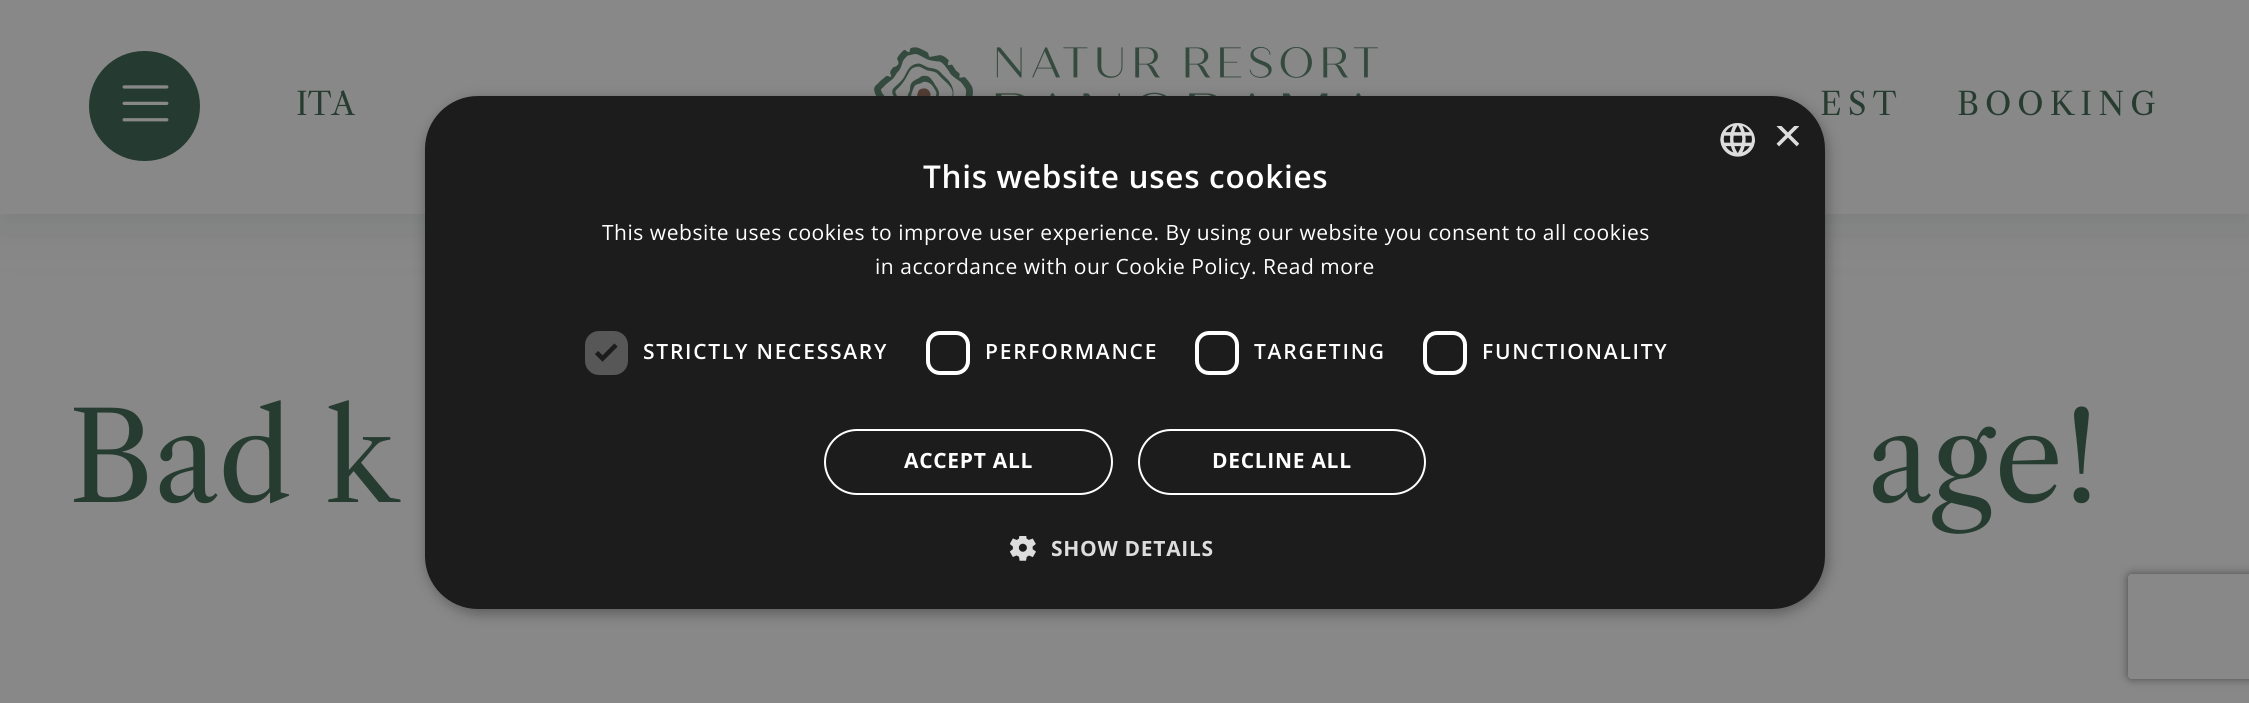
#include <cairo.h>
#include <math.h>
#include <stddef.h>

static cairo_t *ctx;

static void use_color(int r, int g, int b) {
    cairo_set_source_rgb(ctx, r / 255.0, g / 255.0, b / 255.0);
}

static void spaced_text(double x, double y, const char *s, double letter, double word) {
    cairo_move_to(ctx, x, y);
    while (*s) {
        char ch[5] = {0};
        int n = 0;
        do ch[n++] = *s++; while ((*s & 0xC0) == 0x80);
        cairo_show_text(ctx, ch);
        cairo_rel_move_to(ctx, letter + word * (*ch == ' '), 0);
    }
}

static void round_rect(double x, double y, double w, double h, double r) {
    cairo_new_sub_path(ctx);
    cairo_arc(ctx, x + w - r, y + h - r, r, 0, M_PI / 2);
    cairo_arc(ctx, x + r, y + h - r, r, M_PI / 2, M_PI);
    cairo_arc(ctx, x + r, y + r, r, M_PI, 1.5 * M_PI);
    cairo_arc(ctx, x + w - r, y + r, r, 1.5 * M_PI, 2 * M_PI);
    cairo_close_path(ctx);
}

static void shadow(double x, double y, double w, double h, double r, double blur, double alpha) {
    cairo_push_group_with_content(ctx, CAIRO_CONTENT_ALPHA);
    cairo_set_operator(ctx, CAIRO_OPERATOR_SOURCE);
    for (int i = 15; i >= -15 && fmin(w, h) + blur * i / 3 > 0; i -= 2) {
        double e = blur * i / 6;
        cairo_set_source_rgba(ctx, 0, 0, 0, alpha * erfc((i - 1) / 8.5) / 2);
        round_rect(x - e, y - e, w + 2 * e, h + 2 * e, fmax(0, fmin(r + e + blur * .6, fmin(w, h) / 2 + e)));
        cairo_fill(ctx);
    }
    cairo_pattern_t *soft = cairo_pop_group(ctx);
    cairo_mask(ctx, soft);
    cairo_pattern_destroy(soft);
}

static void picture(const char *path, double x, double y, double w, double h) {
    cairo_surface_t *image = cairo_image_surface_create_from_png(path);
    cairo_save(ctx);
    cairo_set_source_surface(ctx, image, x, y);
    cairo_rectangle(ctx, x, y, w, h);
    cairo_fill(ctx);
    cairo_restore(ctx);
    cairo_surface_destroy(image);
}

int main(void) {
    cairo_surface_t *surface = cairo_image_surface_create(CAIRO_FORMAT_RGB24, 2249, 703);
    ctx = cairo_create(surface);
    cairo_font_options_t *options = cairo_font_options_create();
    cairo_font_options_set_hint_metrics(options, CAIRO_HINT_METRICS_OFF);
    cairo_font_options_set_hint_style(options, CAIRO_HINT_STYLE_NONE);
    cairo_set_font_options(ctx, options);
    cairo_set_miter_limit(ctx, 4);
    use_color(136, 136, 136);
    cairo_paint(ctx);
    use_color(83, 87, 91);
    shadow(0, 14, 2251, 214, 0, 21, 0.2);
    use_color(136, 136, 136);
    cairo_rectangle(ctx, 0, 0, 2249, 214);
    cairo_fill(ctx);
    picture("img1.png", 874, 46, 504, 50);
    use_color(37, 58, 48);
    round_rect(89, 51, 111, 110, 55);
    cairo_fill(ctx);
    picture("img2.png", 122, 85, 47, 37);
    cairo_select_font_face(ctx, "Libre Caslon Text", CAIRO_FONT_SLANT_NORMAL, CAIRO_FONT_WEIGHT_NORMAL);
    cairo_set_font_size(ctx, 31.5);
    use_color(39, 60, 49);
    cairo_move_to(ctx, 296, 115);
    cairo_show_text(ctx, "ITA");
    spaced_text(1820, 115, "EST", 6, 0);
    spaced_text(1957, 115, "BOOKING", 6, 0);
    use_color(0, 0, 0);
    shadow(427, 100, 1400, 513, 53, 7, 0.35);
    use_color(28, 28, 28);
    round_rect(425, 96, 1400, 513, 53);
    cairo_fill(ctx);
    picture("img3.png", 1720, 123, 35, 34);
    cairo_save(ctx);
    cairo_rectangle(ctx, 1773, 126, 26, 26);
    cairo_clip(ctx);
    cairo_select_font_face(ctx, "Liberation Sans", CAIRO_FONT_SLANT_NORMAL, CAIRO_FONT_WEIGHT_NORMAL);
    cairo_set_font_size(ctx, 51);
    use_color(221, 221, 221);
    cairo_move_to(ctx, 1773, 152);
    cairo_show_text(ctx, "×");
    cairo_restore(ctx);
    cairo_select_font_face(ctx, "Open Sans SemiBold", CAIRO_FONT_SLANT_NORMAL, CAIRO_FONT_WEIGHT_NORMAL);
    use_color(255, 255, 255);
    spaced_text(923, 188, "This website uses cookies", 0.7, 0);
    cairo_select_font_face(ctx, "Open Sans", CAIRO_FONT_SLANT_NORMAL, CAIRO_FONT_WEIGHT_NORMAL);
    cairo_set_font_size(ctx, 21);
    spaced_text(602, 240, "This website uses cookies to improve user experience. By using our website you consent to all cookies", 0.53, 0);
    spaced_text(875, 274, "in accordance with our Cookie Policy. Read more", 0.53, 0);
    use_color(87, 87, 87);
    round_rect(585, 331, 43, 44, 14);
    cairo_fill(ctx);
    cairo_new_path(ctx);
    cairo_move_to(ctx, 596.5, 352.5);
    cairo_line_to(ctx, 602.5, 358.5);
    cairo_line_to(ctx, 616, 345);
    use_color(28, 28, 28);
    cairo_set_line_width(ctx, 4.6);
    cairo_stroke(ctx);
    cairo_select_font_face(ctx, "Open Sans SemiBold", CAIRO_FONT_SLANT_NORMAL, CAIRO_FONT_WEIGHT_NORMAL);
    use_color(255, 255, 255);
    spaced_text(643, 359, "STRICTLY NECESSARY", 1.75, 0);
    round_rect(928, 333, 40, 40, 12);
    cairo_set_line_width(ctx, 4);
    cairo_stroke(ctx);
    spaced_text(985, 359, "PERFORMANCE", 1.75, 0);
    round_rect(1197, 333, 40, 40, 12);
    cairo_stroke(ctx);
    spaced_text(1254, 359, "TARGETING", 1.75, 0);
    round_rect(1425, 333, 40, 40, 12);
    cairo_stroke(ctx);
    spaced_text(1482, 359, "FUNCTIONALITY", 1.75, 0);
    round_rect(825, 430, 287, 64, 32);
    cairo_set_line_width(ctx, 2);
    cairo_stroke(ctx);
    cairo_select_font_face(ctx, "Open Sans", CAIRO_FONT_SLANT_NORMAL, CAIRO_FONT_WEIGHT_BOLD);
    spaced_text(904, 468, "ACCEPT ALL", 0.7, 0);
    round_rect(1139, 430, 286, 64, 32);
    cairo_stroke(ctx);
    spaced_text(1212, 468, "DECLINE ALL", 0.7, 0);
    picture("img4.png", 1010, 536, 26, 25);
    use_color(221, 221, 221);
    spaced_text(1051, 556, "SHOW DETAILS", 0.7, 0);
    cairo_select_font_face(ctx, "Libre Caslon Text", CAIRO_FONT_SLANT_NORMAL, CAIRO_FONT_WEIGHT_NORMAL);
    cairo_set_font_size(ctx, 122.5);
    use_color(39, 60, 49);
    cairo_move_to(ctx, 68, 502);
    cairo_show_text(ctx, "Bad k");
    cairo_move_to(ctx, 1867, 502);
    cairo_show_text(ctx, "age!");
    cairo_save(ctx);
    cairo_set_fill_rule(ctx, CAIRO_FILL_RULE_EVEN_ODD);
    cairo_new_path(ctx);
    cairo_move_to(ctx, 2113, 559);
    cairo_line_to(ctx, 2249, 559);
    cairo_line_to(ctx, 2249, 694);
    cairo_line_to(ctx, 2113, 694);
    cairo_close_path(ctx);
    cairo_move_to(ctx, 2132, 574);
    cairo_line_to(ctx, 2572, 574);
    cairo_curve_to(ctx, 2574, 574, 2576, 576, 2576, 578);
    cairo_line_to(ctx, 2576, 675);
    cairo_curve_to(ctx, 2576, 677, 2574, 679, 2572, 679);
    cairo_line_to(ctx, 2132, 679);
    cairo_curve_to(ctx, 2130, 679, 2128, 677, 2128, 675);
    cairo_line_to(ctx, 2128, 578);
    cairo_curve_to(ctx, 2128, 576, 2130, 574, 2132, 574);
    cairo_close_path(ctx);
    cairo_clip(ctx);
    use_color(73, 73, 73);
    shadow(2128, 574, 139, 105, 4, 4.5, 1);
    cairo_restore(ctx);
    cairo_surface_write_to_png(surface, "result.png");
    cairo_font_options_destroy(options);
    cairo_destroy(ctx);
    cairo_surface_destroy(surface);
    return 0;
}
